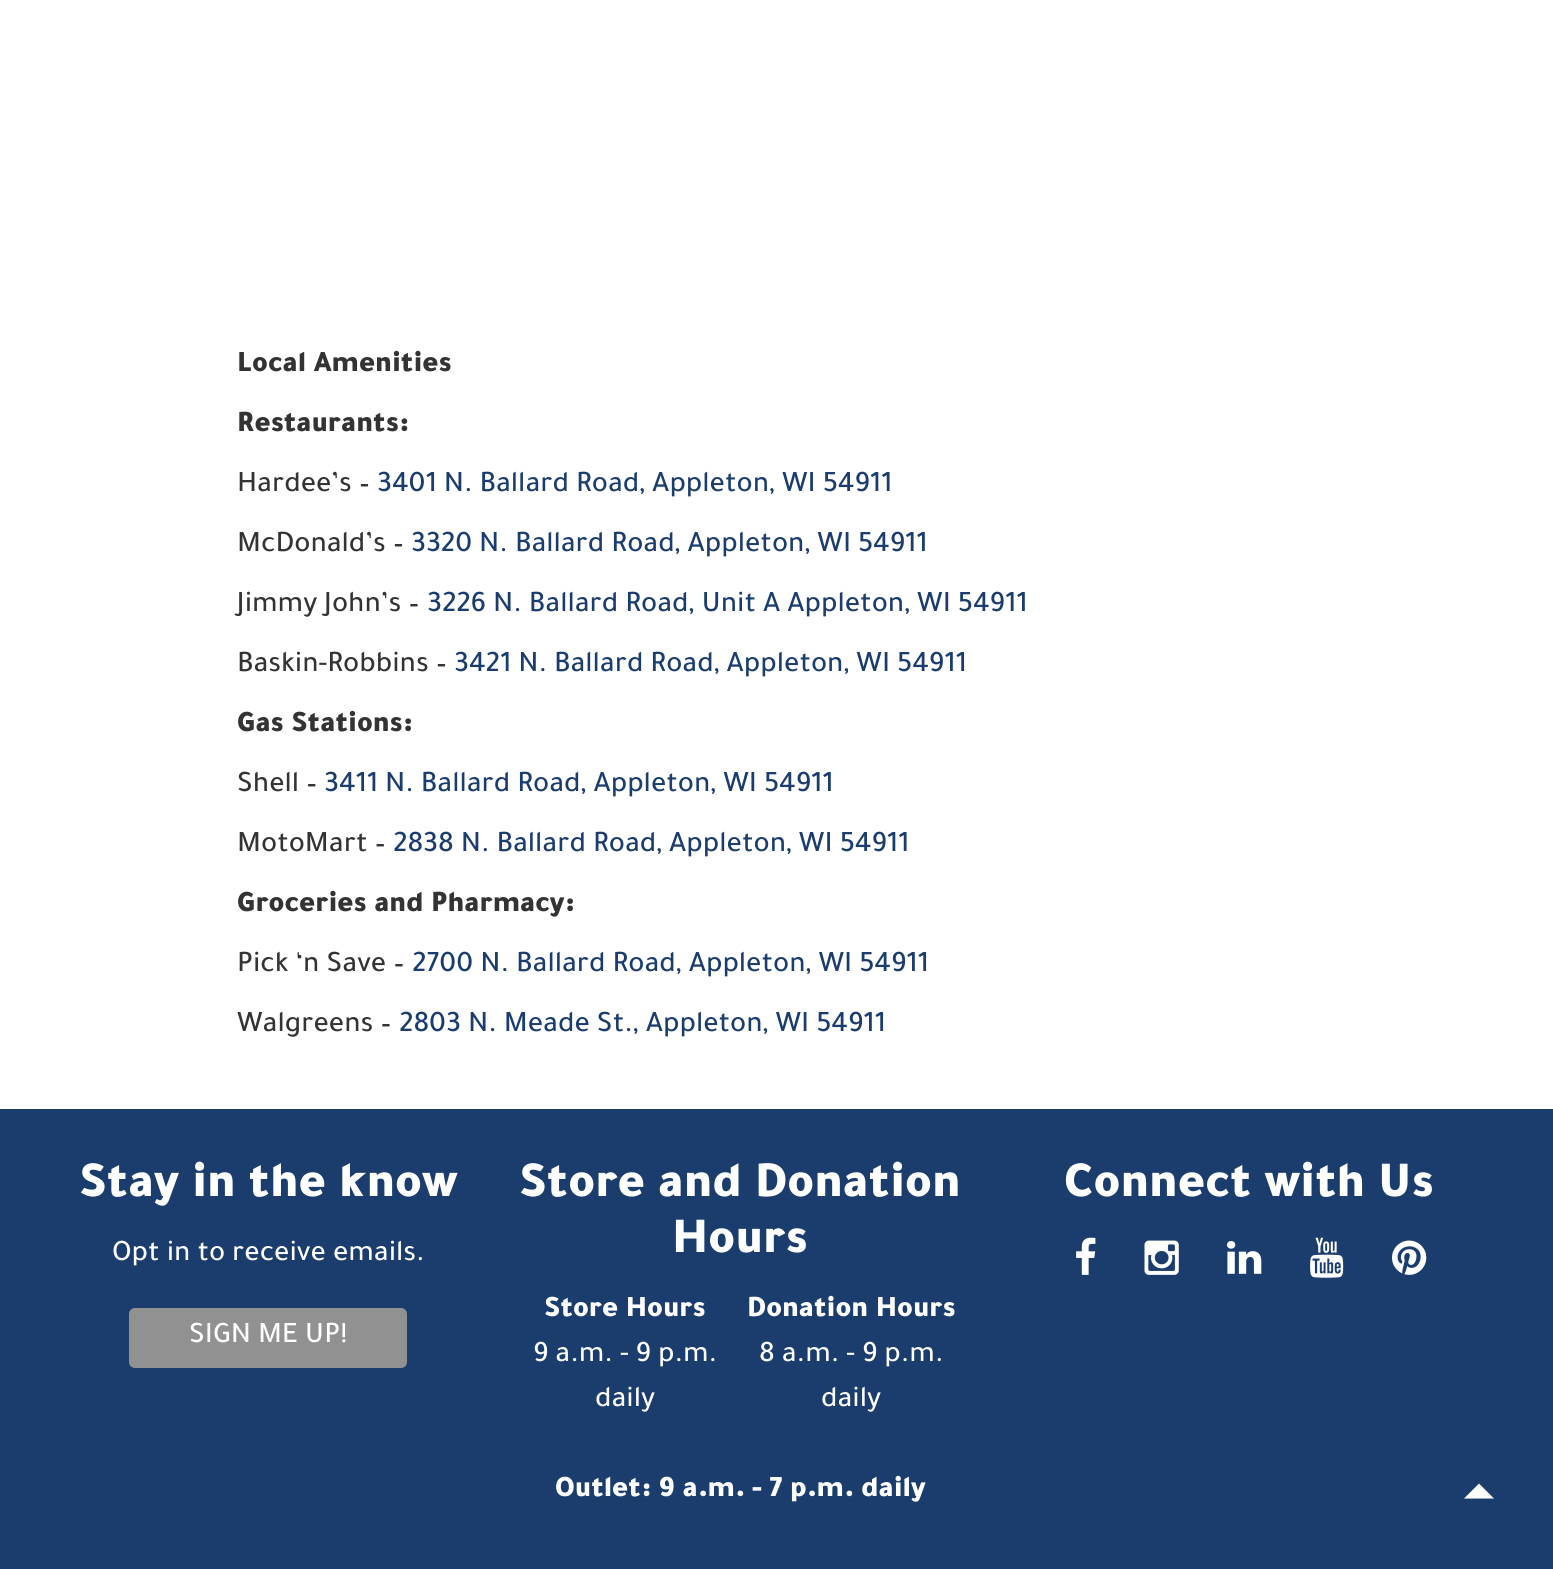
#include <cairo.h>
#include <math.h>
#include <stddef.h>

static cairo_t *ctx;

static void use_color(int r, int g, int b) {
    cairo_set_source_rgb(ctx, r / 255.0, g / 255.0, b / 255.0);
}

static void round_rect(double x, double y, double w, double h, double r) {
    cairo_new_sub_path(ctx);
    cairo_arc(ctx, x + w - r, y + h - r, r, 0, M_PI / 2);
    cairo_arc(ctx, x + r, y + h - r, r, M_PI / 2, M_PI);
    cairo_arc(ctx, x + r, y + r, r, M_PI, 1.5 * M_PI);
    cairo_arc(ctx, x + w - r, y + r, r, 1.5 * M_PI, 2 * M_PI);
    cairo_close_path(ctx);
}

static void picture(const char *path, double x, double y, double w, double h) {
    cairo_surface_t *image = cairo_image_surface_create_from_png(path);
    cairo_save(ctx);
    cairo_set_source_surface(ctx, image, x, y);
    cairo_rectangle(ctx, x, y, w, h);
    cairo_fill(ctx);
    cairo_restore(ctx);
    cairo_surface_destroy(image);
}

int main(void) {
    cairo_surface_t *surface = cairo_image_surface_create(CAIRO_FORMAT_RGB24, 1553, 1569);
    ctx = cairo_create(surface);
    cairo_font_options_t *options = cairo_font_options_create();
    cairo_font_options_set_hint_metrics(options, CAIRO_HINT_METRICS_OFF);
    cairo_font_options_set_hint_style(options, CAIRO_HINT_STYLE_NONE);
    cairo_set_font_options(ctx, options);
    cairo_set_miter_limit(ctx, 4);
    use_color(255, 255, 255);
    cairo_paint(ctx);
    cairo_select_font_face(ctx, "Tajawal Black", CAIRO_FONT_SLANT_NORMAL, CAIRO_FONT_WEIGHT_NORMAL);
    cairo_set_font_size(ctx, 30);
    use_color(51, 51, 51);
    cairo_move_to(ctx, 237, 371);
    cairo_show_text(ctx, "Local Amenities");
    cairo_move_to(ctx, 237, 431);
    cairo_show_text(ctx, "Restaurants:");
    cairo_select_font_face(ctx, "Tajawal Medium", CAIRO_FONT_SLANT_NORMAL, CAIRO_FONT_WEIGHT_NORMAL);
    cairo_move_to(ctx, 237, 491);
    cairo_show_text(ctx, "Hardee’s –");
    use_color(26, 61, 110);
    cairo_move_to(ctx, 377, 491);
    cairo_show_text(ctx, "3401 N. Ballard Road, Appleton, WI 54911");
    use_color(51, 51, 51);
    cairo_move_to(ctx, 237, 551);
    cairo_show_text(ctx, "McDonald’s –");
    use_color(26, 61, 110);
    cairo_move_to(ctx, 411, 551);
    cairo_show_text(ctx, "3320 N. Ballard Road, Appleton, WI 54911");
    use_color(51, 51, 51);
    cairo_move_to(ctx, 237, 611);
    cairo_show_text(ctx, "Jimmy John’s –");
    use_color(26, 61, 110);
    cairo_move_to(ctx, 427, 611);
    cairo_show_text(ctx, "3226 N. Ballard Road, Unit A Appleton, WI 54911");
    use_color(51, 51, 51);
    cairo_move_to(ctx, 237, 671);
    cairo_show_text(ctx, "Baskin-Robbins –");
    use_color(26, 61, 110);
    cairo_move_to(ctx, 454, 671);
    cairo_show_text(ctx, "3421 N. Ballard Road, Appleton, WI 54911");
    cairo_select_font_face(ctx, "Tajawal Black", CAIRO_FONT_SLANT_NORMAL, CAIRO_FONT_WEIGHT_NORMAL);
    use_color(51, 51, 51);
    cairo_move_to(ctx, 237, 731);
    cairo_show_text(ctx, "Gas Stations:");
    cairo_select_font_face(ctx, "Tajawal Medium", CAIRO_FONT_SLANT_NORMAL, CAIRO_FONT_WEIGHT_NORMAL);
    cairo_move_to(ctx, 237, 791);
    cairo_show_text(ctx, "Shell –");
    use_color(26, 61, 110);
    cairo_move_to(ctx, 324, 791);
    cairo_show_text(ctx, "3411 N. Ballard Road, Appleton, WI 54911");
    use_color(51, 51, 51);
    cairo_move_to(ctx, 237, 851);
    cairo_show_text(ctx, "MotoMart –");
    use_color(26, 61, 110);
    cairo_move_to(ctx, 393, 851);
    cairo_show_text(ctx, "2838 N. Ballard Road, Appleton, WI 54911");
    cairo_select_font_face(ctx, "Tajawal Black", CAIRO_FONT_SLANT_NORMAL, CAIRO_FONT_WEIGHT_NORMAL);
    use_color(51, 51, 51);
    cairo_move_to(ctx, 237, 911);
    cairo_show_text(ctx, "Groceries and Pharmacy:");
    cairo_select_font_face(ctx, "Tajawal Medium", CAIRO_FONT_SLANT_NORMAL, CAIRO_FONT_WEIGHT_NORMAL);
    cairo_move_to(ctx, 237, 971);
    cairo_show_text(ctx, "Pick ‘n Save –");
    use_color(26, 61, 110);
    cairo_move_to(ctx, 412, 971);
    cairo_show_text(ctx, "2700 N. Ballard Road, Appleton, WI 54911");
    use_color(51, 51, 51);
    cairo_move_to(ctx, 237, 1031);
    cairo_show_text(ctx, "Walgreens –");
    use_color(26, 61, 110);
    cairo_move_to(ctx, 399, 1031);
    cairo_show_text(ctx, "2803 N. Meade St., Appleton, WI 54911");
    cairo_rectangle(ctx, 0, 1109, 1553, 460);
    cairo_fill(ctx);
    cairo_select_font_face(ctx, "Tajawal Black", CAIRO_FONT_SLANT_NORMAL, CAIRO_FONT_WEIGHT_NORMAL);
    cairo_set_font_size(ctx, 51);
    use_color(255, 255, 255);
    cairo_move_to(ctx, 79, 1196);
    cairo_show_text(ctx, "Stay in the know");
    cairo_select_font_face(ctx, "Tajawal Medium", CAIRO_FONT_SLANT_NORMAL, CAIRO_FONT_WEIGHT_NORMAL);
    cairo_set_font_size(ctx, 30);
    cairo_move_to(ctx, 112, 1260);
    cairo_show_text(ctx, "Opt in to receive emails.");
    use_color(145, 145, 145);
    round_rect(129, 1308, 278, 60, 6);
    cairo_fill(ctx);
    use_color(255, 255, 255);
    cairo_move_to(ctx, 189, 1342);
    cairo_show_text(ctx, "SIGN ME UP!");
    cairo_select_font_face(ctx, "Tajawal Black", CAIRO_FONT_SLANT_NORMAL, CAIRO_FONT_WEIGHT_NORMAL);
    cairo_set_font_size(ctx, 51);
    cairo_move_to(ctx, 519, 1196);
    cairo_show_text(ctx, "Store and Donation");
    cairo_move_to(ctx, 672, 1252);
    cairo_show_text(ctx, "Hours");
    cairo_set_font_size(ctx, 30);
    cairo_move_to(ctx, 544, 1316);
    cairo_show_text(ctx, "Store Hours");
    cairo_move_to(ctx, 747, 1316);
    cairo_show_text(ctx, "Donation Hours");
    cairo_select_font_face(ctx, "Tajawal Medium", CAIRO_FONT_SLANT_NORMAL, CAIRO_FONT_WEIGHT_NORMAL);
    cairo_move_to(ctx, 533, 1361);
    cairo_show_text(ctx, "9 a.m. - 9 p.m.");
    cairo_move_to(ctx, 595, 1406);
    cairo_show_text(ctx, "daily");
    cairo_move_to(ctx, 759, 1361);
    cairo_show_text(ctx, "8 a.m. - 9 p.m.");
    cairo_move_to(ctx, 821, 1406);
    cairo_show_text(ctx, "daily");
    cairo_select_font_face(ctx, "Tajawal Black", CAIRO_FONT_SLANT_NORMAL, CAIRO_FONT_WEIGHT_NORMAL);
    cairo_move_to(ctx, 555, 1496);
    cairo_show_text(ctx, "Outlet: 9 a.m. - 7 p.m. daily");
    cairo_set_font_size(ctx, 51);
    cairo_move_to(ctx, 1064, 1196);
    cairo_show_text(ctx, "Connect with Us");
    picture("img1.png", 1076, 1237, 20, 38);
    picture("img2.png", 1144, 1240, 35, 35);
    picture("img3.png", 1227, 1241, 35, 33);
    picture("img4.png", 1310, 1237, 34, 41);
    picture("img5.png", 1392, 1240, 35, 35);
    cairo_new_path(ctx);
    cairo_move_to(ctx, 1494, 1498.5);
    cairo_line_to(ctx, 1464, 1498.5);
    cairo_line_to(ctx, 1479, 1483.5);
    cairo_close_path(ctx);
    cairo_fill(ctx);
    cairo_surface_write_to_png(surface, "result.png");
    cairo_font_options_destroy(options);
    cairo_destroy(ctx);
    cairo_surface_destroy(surface);
    return 0;
}
